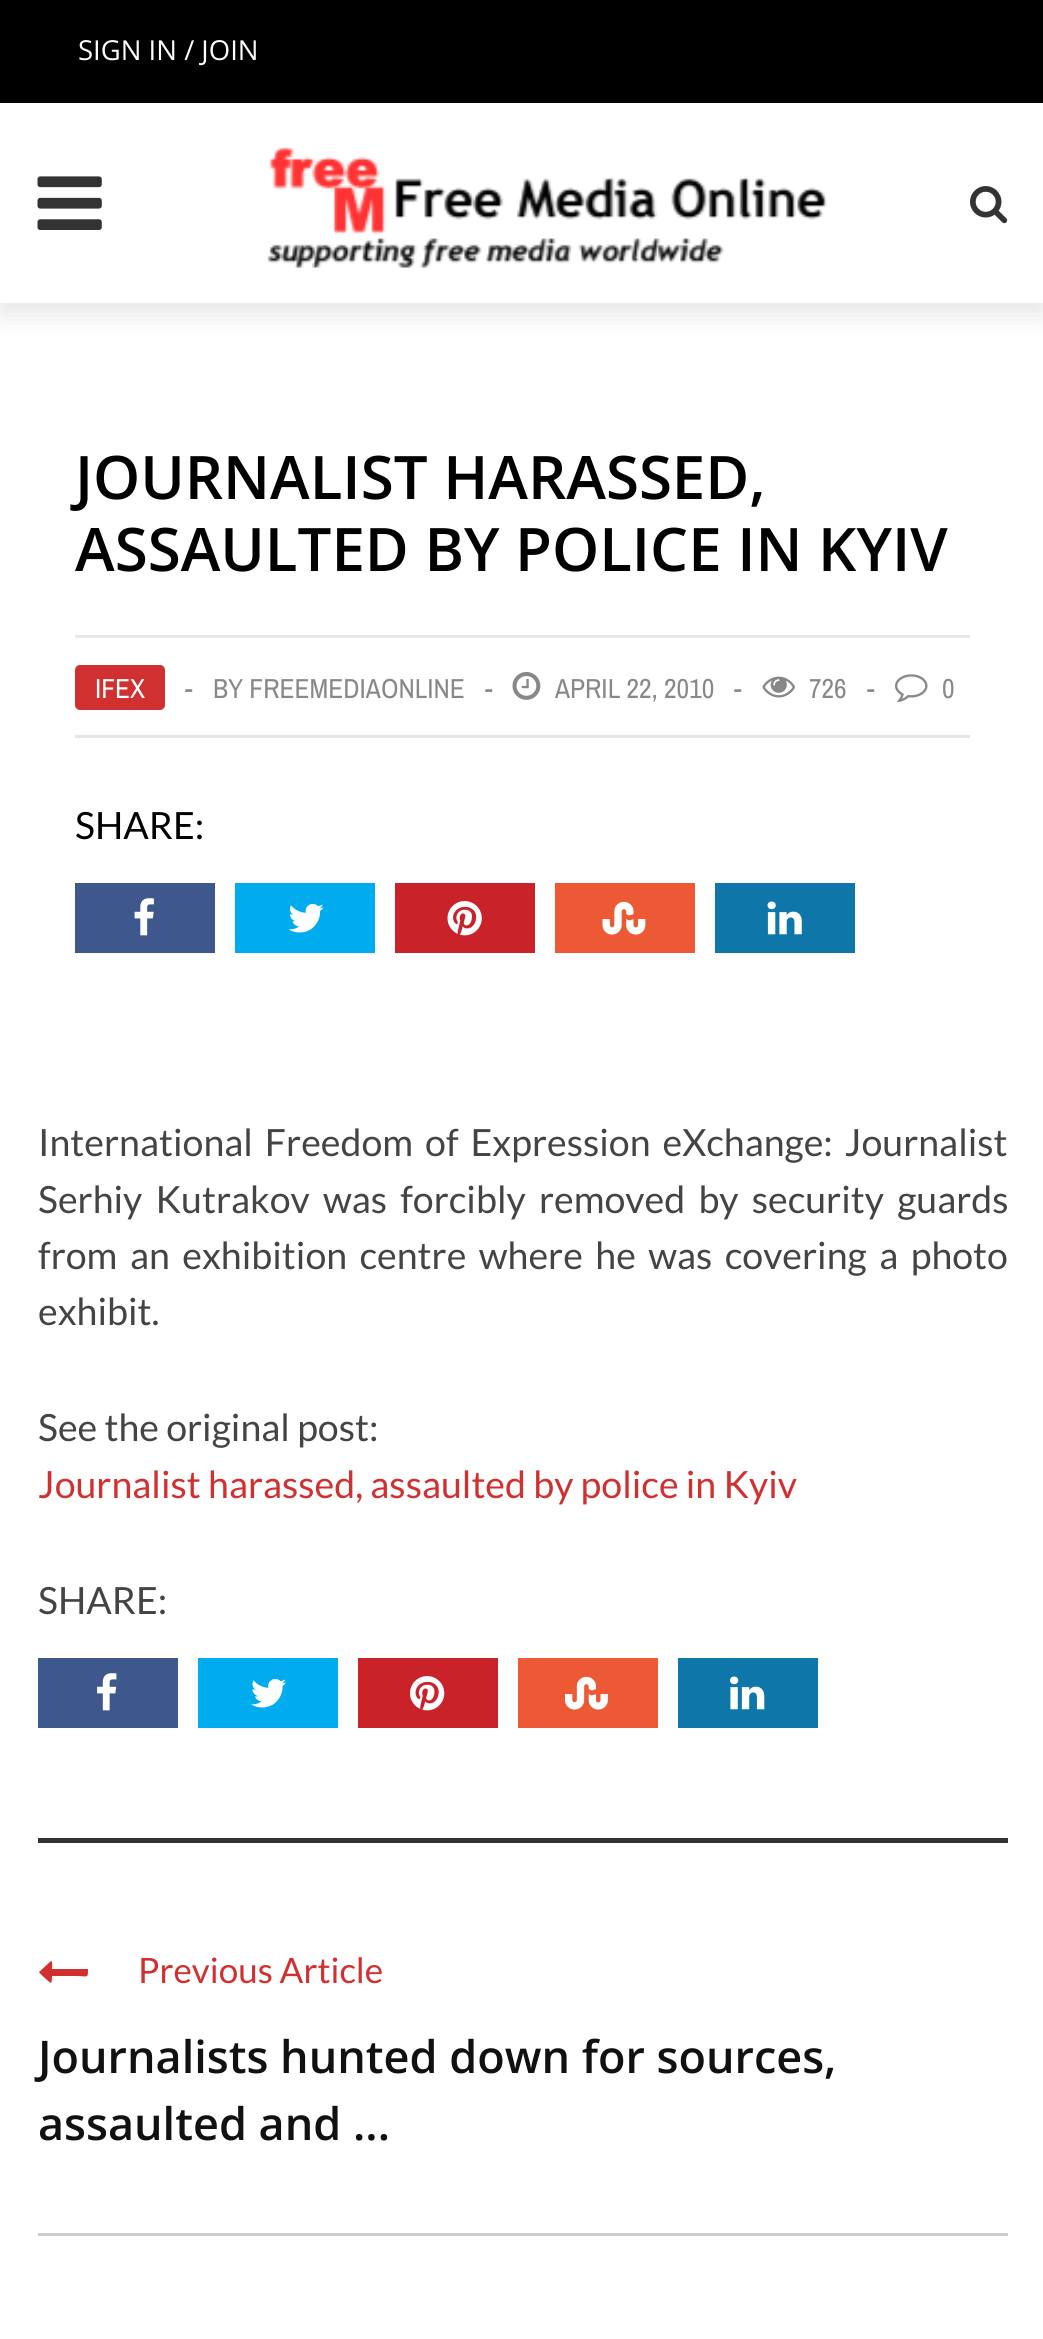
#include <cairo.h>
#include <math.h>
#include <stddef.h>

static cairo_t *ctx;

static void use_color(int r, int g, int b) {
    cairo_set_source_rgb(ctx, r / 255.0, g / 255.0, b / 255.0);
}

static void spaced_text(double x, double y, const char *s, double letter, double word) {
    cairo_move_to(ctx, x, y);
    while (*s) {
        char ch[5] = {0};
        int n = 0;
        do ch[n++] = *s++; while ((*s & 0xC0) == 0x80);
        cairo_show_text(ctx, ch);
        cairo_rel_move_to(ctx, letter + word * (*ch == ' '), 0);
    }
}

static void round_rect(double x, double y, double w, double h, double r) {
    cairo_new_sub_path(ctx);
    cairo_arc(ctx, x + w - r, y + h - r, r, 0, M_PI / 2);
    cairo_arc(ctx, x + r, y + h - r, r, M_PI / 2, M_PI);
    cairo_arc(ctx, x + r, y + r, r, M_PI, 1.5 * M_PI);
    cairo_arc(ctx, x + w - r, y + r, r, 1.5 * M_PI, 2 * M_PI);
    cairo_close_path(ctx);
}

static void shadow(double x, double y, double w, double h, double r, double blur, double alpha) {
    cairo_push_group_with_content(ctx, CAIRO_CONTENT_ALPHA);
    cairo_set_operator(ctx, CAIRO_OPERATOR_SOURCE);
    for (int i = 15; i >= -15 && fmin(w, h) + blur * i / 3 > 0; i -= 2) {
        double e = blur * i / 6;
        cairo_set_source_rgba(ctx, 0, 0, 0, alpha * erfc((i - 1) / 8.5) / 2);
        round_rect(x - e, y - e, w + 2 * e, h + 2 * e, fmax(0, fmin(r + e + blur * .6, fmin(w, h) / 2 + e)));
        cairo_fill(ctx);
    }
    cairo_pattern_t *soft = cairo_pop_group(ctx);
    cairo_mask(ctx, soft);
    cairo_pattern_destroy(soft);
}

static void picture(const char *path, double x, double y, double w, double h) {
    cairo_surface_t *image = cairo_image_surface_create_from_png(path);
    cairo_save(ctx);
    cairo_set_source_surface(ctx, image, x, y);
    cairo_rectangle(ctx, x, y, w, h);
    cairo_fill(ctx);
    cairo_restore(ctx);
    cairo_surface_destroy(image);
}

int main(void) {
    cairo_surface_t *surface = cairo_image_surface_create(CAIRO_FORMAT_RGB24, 1043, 2339);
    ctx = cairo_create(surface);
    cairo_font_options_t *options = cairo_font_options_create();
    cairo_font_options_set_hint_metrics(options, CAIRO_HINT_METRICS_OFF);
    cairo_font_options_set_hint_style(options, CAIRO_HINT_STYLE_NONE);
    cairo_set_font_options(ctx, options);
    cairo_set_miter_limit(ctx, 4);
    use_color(255, 255, 255);
    cairo_paint(ctx);
    use_color(0, 0, 0);
    cairo_rectangle(ctx, 0, 0, 1043, 103);
    cairo_fill(ctx);
    cairo_select_font_face(ctx, "Open Sans", CAIRO_FONT_SLANT_NORMAL, CAIRO_FONT_WEIGHT_NORMAL);
    cairo_set_font_size(ctx, 27.5);
    use_color(255, 255, 255);
    cairo_move_to(ctx, 78, 60);
    cairo_show_text(ctx, "SIGN IN / JOIN");
    cairo_save(ctx);
    cairo_set_fill_rule(ctx, CAIRO_FILL_RULE_EVEN_ODD);
    cairo_new_path(ctx);
    cairo_move_to(ctx, 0, 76);
    cairo_line_to(ctx, 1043, 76);
    cairo_line_to(ctx, 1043, 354);
    cairo_line_to(ctx, 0, 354);
    cairo_close_path(ctx);
    cairo_move_to(ctx, 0, 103);
    cairo_line_to(ctx, 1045, 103);
    cairo_line_to(ctx, 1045, 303);
    cairo_line_to(ctx, 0, 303);
    cairo_close_path(ctx);
    cairo_clip(ctx);
    use_color(0, 0, 0);
    shadow(0, 115, 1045, 200, 0, 12.5, 0.1);
    cairo_restore(ctx);
    picture("img1.png", 37, 176, 65, 54);
    picture("img2.png", 267, 147, 560, 121);
    picture("img3.png", 970, 186, 38, 38);
    cairo_select_font_face(ctx, "Open Sans SemiBold", CAIRO_FONT_SLANT_NORMAL, CAIRO_FONT_WEIGHT_NORMAL);
    cairo_set_font_size(ctx, 60);
    use_color(0, 0, 0);
    cairo_move_to(ctx, 75, 499);
    cairo_show_text(ctx, "JOURNALIST HARASSED,");
    cairo_move_to(ctx, 75, 571);
    cairo_show_text(ctx, "ASSAULTED BY POLICE IN KYIV");
    use_color(230, 230, 230);
    cairo_rectangle(ctx, 75, 635, 895, 3);
    cairo_fill(ctx);
    cairo_rectangle(ctx, 75, 735, 895, 3);
    cairo_fill(ctx);
    use_color(209, 48, 48);
    round_rect(75, 665, 90, 45, 5);
    cairo_fill(ctx);
    cairo_select_font_face(ctx, "Archivo Narrow", CAIRO_FONT_SLANT_NORMAL, CAIRO_FONT_WEIGHT_NORMAL);
    cairo_set_font_size(ctx, 27.5);
    use_color(255, 255, 255);
    cairo_move_to(ctx, 95, 698);
    cairo_show_text(ctx, "IFEX");
    use_color(136, 136, 136);
    cairo_move_to(ctx, 185, 698);
    cairo_show_text(ctx, "-");
    cairo_move_to(ctx, 213, 698);
    cairo_show_text(ctx, "BY FREEMEDIAONLINE");
    cairo_move_to(ctx, 485, 698);
    cairo_show_text(ctx, "-");
    picture("img4.png", 512, 672, 29, 28);
    cairo_move_to(ctx, 555, 698);
    cairo_show_text(ctx, "APRIL 22, 2010");
    cairo_move_to(ctx, 734, 698);
    cairo_show_text(ctx, "-");
    picture("img5.png", 762, 676, 33, 22);
    cairo_move_to(ctx, 809, 698);
    cairo_show_text(ctx, "726");
    cairo_move_to(ctx, 867, 698);
    cairo_show_text(ctx, "-");
    picture("img6.png", 895, 674, 33, 29);
    cairo_move_to(ctx, 942, 698);
    cairo_show_text(ctx, "0");
    cairo_select_font_face(ctx, "Lato", CAIRO_FONT_SLANT_NORMAL, CAIRO_FONT_WEIGHT_NORMAL);
    cairo_set_font_size(ctx, 37.5);
    use_color(0, 0, 0);
    cairo_move_to(ctx, 75, 839);
    cairo_show_text(ctx, "SHARE:");
    use_color(62, 87, 140);
    cairo_rectangle(ctx, 75, 883, 140, 70);
    cairo_fill(ctx);
    picture("img7.png", 134, 898, 20, 38);
    use_color(0, 172, 238);
    cairo_rectangle(ctx, 235, 883, 140, 70);
    cairo_fill(ctx);
    picture("img8.png", 288, 903, 36, 30);
    use_color(201, 34, 40);
    cairo_rectangle(ctx, 395, 883, 140, 70);
    cairo_fill(ctx);
    picture("img9.png", 447, 901, 35, 35);
    use_color(237, 89, 52);
    cairo_rectangle(ctx, 555, 883, 140, 70);
    cairo_fill(ctx);
    picture("img10.png", 602, 901, 44, 34);
    use_color(14, 118, 168);
    cairo_rectangle(ctx, 715, 883, 140, 70);
    cairo_fill(ctx);
    picture("img11.png", 767, 901, 35, 34);
    use_color(68, 68, 68);
    spaced_text(38, 1156, "International Freedom of Expression eXchange: Journalist", 0, 4.75);
    spaced_text(38, 1213, "Serhiy Kutrakov was forcibly removed by security guards", 0, 6);
    spaced_text(38, 1269, "from an exhibition centre where he was covering a photo", 0, 5.25);
    cairo_move_to(ctx, 38, 1325);
    cairo_show_text(ctx, "exhibit.");
    cairo_move_to(ctx, 38, 1441);
    cairo_show_text(ctx, "See the original post:");
    use_color(209, 48, 48);
    cairo_move_to(ctx, 38, 1498);
    cairo_show_text(ctx, "Journalist harassed, assaulted by police in Kyiv");
    use_color(68, 68, 68);
    cairo_move_to(ctx, 38, 1614);
    cairo_show_text(ctx, "SHARE:");
    use_color(62, 87, 140);
    cairo_rectangle(ctx, 38, 1658, 140, 70);
    cairo_fill(ctx);
    picture("img12.png", 97, 1673, 20, 38);
    use_color(0, 172, 238);
    cairo_rectangle(ctx, 198, 1658, 140, 70);
    cairo_fill(ctx);
    picture("img13.png", 251, 1678, 35, 30);
    use_color(201, 34, 40);
    cairo_rectangle(ctx, 358, 1658, 140, 70);
    cairo_fill(ctx);
    picture("img14.png", 410, 1676, 35, 35);
    use_color(237, 89, 52);
    cairo_rectangle(ctx, 518, 1658, 140, 70);
    cairo_fill(ctx);
    picture("img15.png", 565, 1676, 43, 34);
    use_color(14, 118, 168);
    cairo_rectangle(ctx, 678, 1658, 140, 70);
    cairo_fill(ctx);
    picture("img16.png", 730, 1676, 35, 34);
    use_color(51, 51, 51);
    cairo_rectangle(ctx, 38, 1838, 970, 5);
    cairo_fill(ctx);
    use_color(209, 48, 48);
    cairo_new_path(ctx);
    cairo_move_to(ctx, 88, 1969);
    cairo_curve_to(ctx, 88, 1979, 88, 1976, 75, 1976);
    cairo_line_to(ctx, 52, 1976);
    cairo_curve_to(ctx, 52, 1977, 52, 1982, 51, 1983);
    cairo_curve_to(ctx, 50, 1983, 39, 1973, 39, 1972);
    cairo_line_to(ctx, 51, 1961);
    cairo_curve_to(ctx, 53, 1961, 52, 1968, 52, 1969);
    cairo_line_to(ctx, 87, 1969);
    cairo_close_path(ctx);
    cairo_fill(ctx);
    cairo_set_font_size(ctx, 35);
    cairo_move_to(ctx, 138, 1983);
    cairo_show_text(ctx, "Previous Article");
    cairo_select_font_face(ctx, "Open Sans SemiBold", CAIRO_FONT_SLANT_NORMAL, CAIRO_FONT_WEIGHT_NORMAL);
    cairo_set_font_size(ctx, 45);
    use_color(17, 17, 17);
    cairo_move_to(ctx, 38, 2073);
    cairo_show_text(ctx, "Journalists hunted down for sources,");
    cairo_move_to(ctx, 38, 2140);
    cairo_show_text(ctx, "assaulted and ...");
    use_color(204, 204, 204);
    cairo_rectangle(ctx, 38, 2233, 970, 3);
    cairo_fill(ctx);
    use_color(254, 251, 251);
    cairo_rectangle(ctx, 994, 2338, 1, 1);
    cairo_fill(ctx);
    cairo_surface_write_to_png(surface, "result.png");
    cairo_font_options_destroy(options);
    cairo_destroy(ctx);
    cairo_surface_destroy(surface);
    return 0;
}
